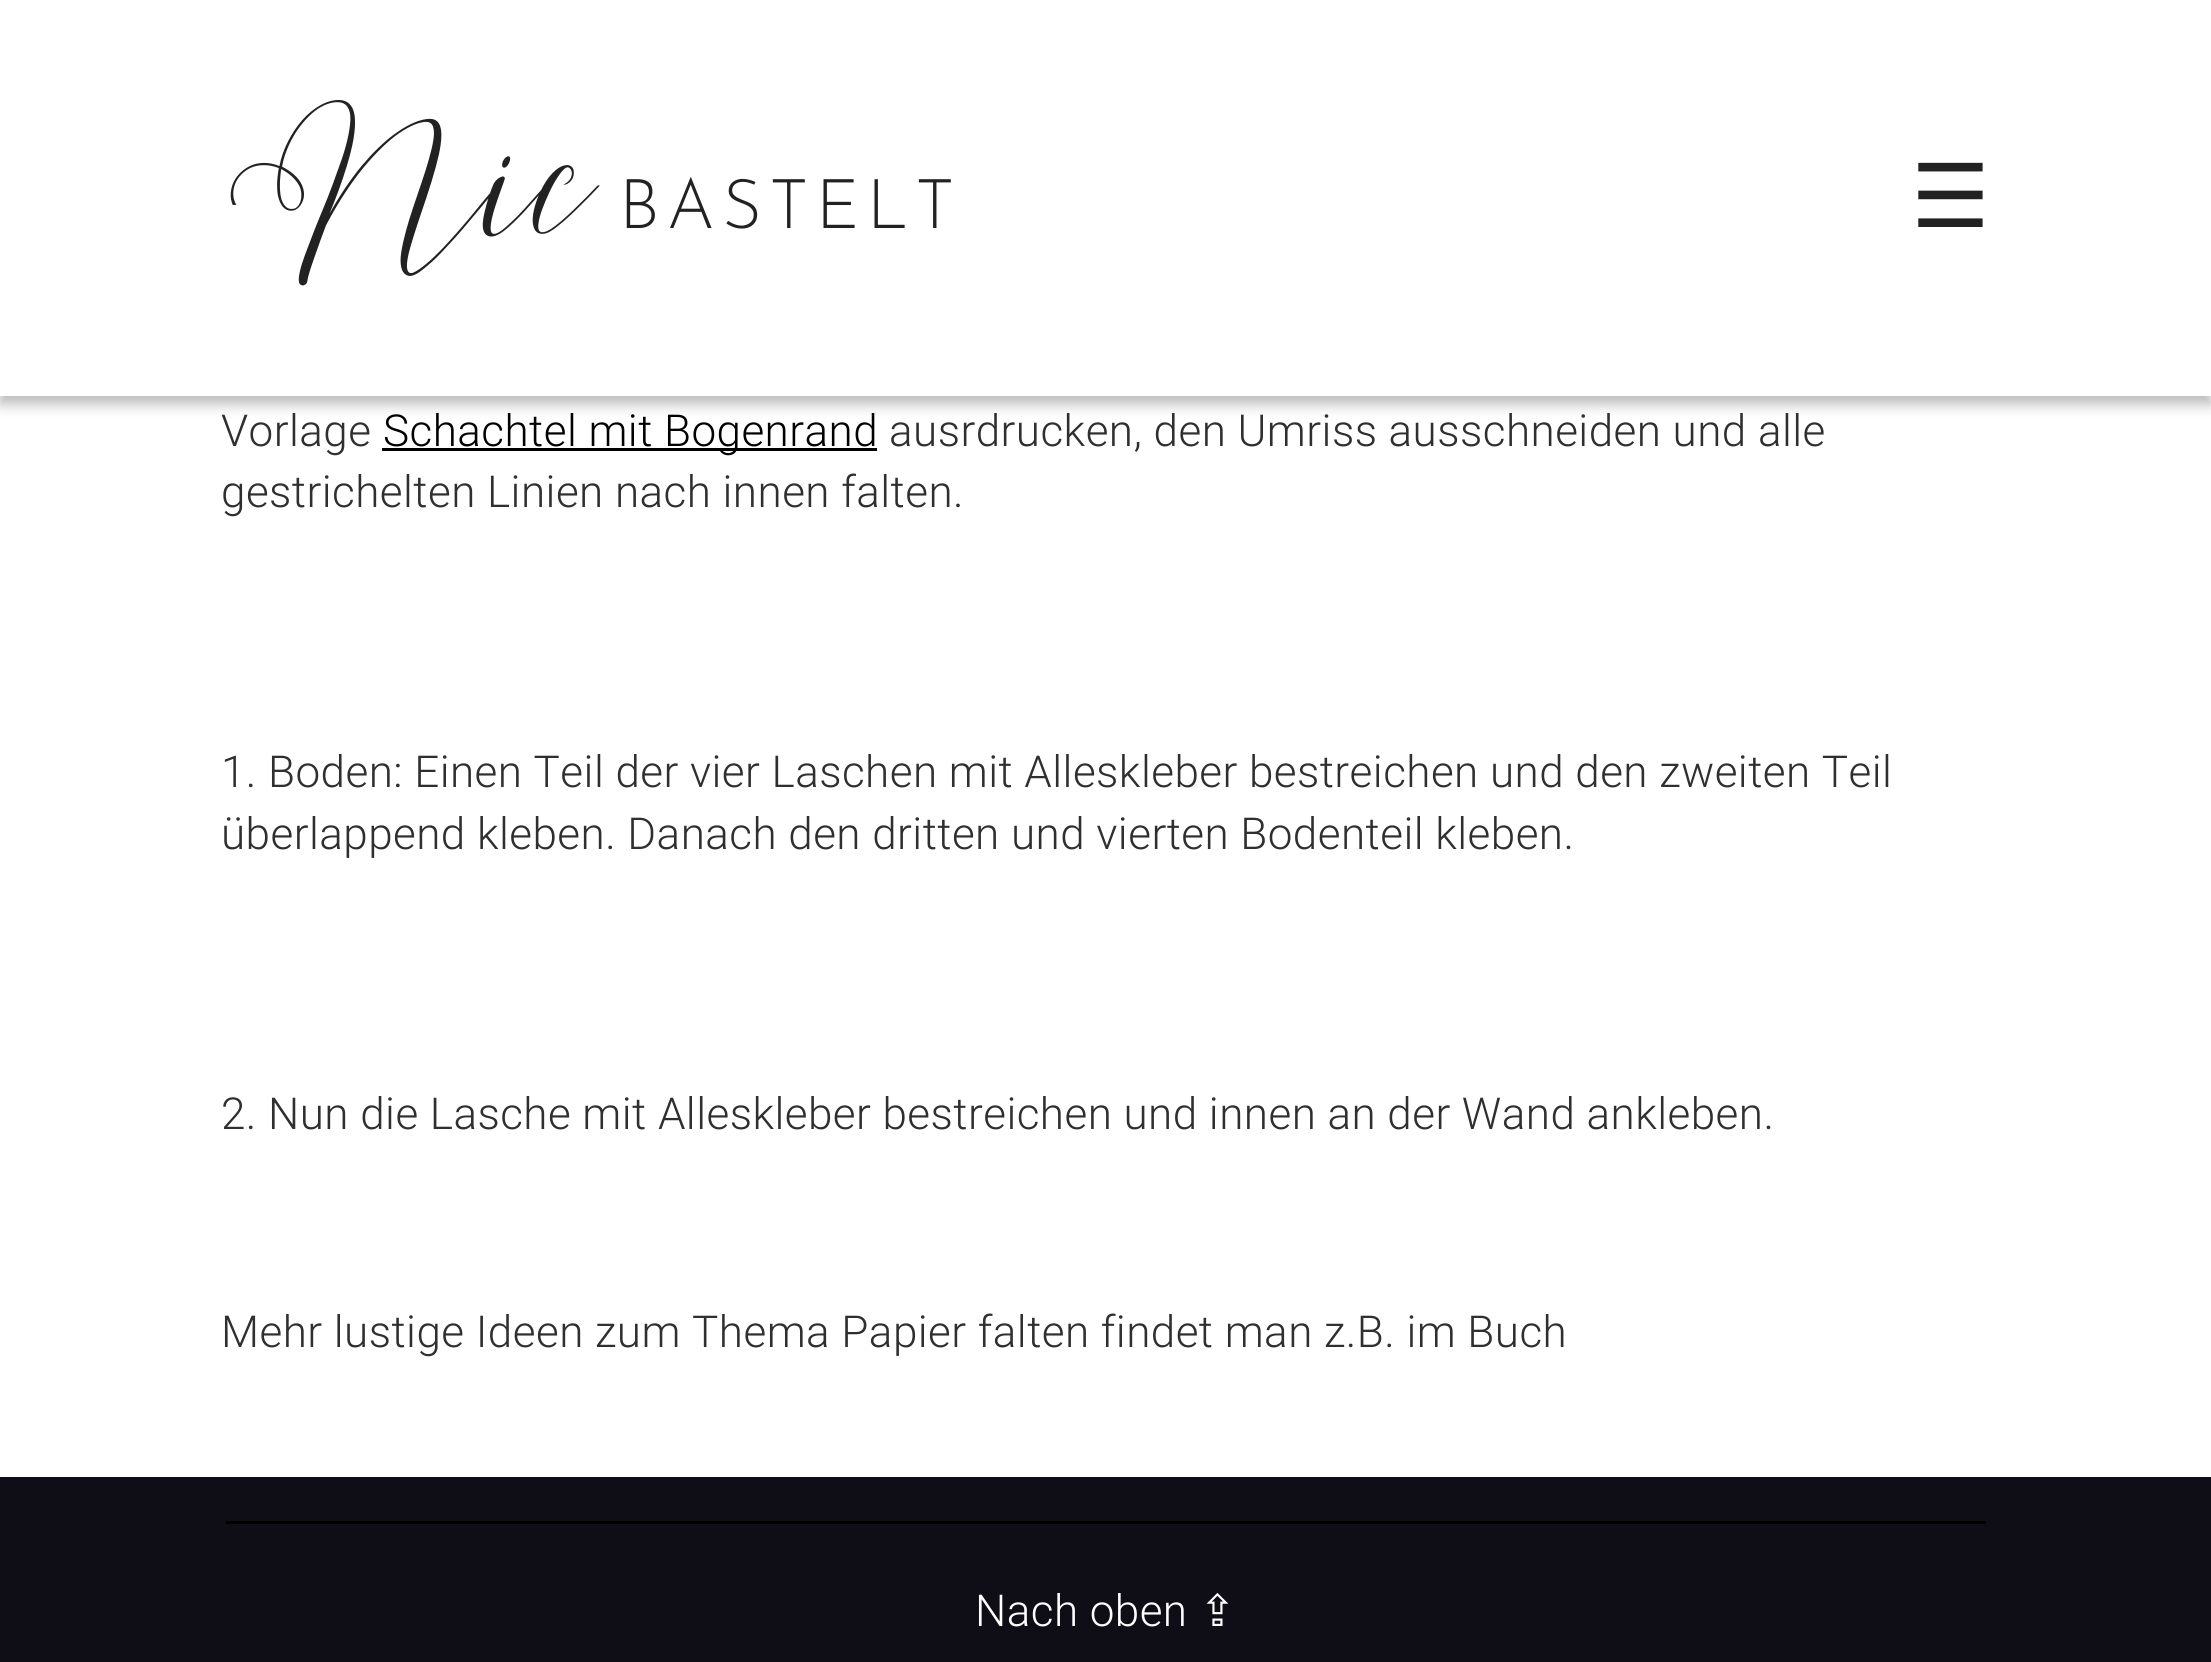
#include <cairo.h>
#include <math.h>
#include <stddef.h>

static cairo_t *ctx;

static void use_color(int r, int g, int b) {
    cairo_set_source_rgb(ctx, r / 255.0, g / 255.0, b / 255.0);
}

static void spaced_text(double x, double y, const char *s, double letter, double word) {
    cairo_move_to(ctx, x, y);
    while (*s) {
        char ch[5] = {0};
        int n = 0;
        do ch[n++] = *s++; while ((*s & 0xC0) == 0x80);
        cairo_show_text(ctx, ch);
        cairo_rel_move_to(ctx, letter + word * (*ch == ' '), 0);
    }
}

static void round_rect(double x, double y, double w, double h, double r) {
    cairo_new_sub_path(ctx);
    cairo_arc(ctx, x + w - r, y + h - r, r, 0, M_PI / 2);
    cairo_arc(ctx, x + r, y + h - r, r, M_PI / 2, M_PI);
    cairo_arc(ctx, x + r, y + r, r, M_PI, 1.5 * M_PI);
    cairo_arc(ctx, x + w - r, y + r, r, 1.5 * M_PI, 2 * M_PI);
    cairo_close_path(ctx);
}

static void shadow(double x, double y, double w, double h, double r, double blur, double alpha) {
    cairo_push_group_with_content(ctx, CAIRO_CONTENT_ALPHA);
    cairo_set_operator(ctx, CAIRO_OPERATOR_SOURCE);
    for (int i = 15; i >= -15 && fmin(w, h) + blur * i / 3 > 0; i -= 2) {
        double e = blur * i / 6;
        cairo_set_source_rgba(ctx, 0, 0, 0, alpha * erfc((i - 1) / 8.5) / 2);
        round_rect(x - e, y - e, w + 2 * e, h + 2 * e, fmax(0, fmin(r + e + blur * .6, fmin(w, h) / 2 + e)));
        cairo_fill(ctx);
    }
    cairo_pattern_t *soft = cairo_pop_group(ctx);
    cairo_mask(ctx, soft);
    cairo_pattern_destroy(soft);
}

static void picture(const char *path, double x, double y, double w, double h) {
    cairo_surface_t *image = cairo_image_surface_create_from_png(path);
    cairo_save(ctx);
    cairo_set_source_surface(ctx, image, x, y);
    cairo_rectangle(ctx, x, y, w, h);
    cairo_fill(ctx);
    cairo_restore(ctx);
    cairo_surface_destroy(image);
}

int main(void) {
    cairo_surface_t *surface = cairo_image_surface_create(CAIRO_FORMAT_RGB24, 2211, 1662);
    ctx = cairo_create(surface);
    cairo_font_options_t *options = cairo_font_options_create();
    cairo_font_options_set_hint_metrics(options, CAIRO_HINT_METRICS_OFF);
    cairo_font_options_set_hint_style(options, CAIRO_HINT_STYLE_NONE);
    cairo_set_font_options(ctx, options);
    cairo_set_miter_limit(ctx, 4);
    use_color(255, 255, 255);
    cairo_paint(ctx);
    use_color(18, 18, 18);
    shadow(0, 8, 2211, 396, 0, 7, 0.3);
    use_color(255, 255, 255);
    cairo_rectangle(ctx, 0, 0, 2211, 396);
    cairo_fill(ctx);
    picture("img1.png", 230, 100, 370, 186);
    cairo_select_font_face(ctx, "Josefin Sans Light", CAIRO_FONT_SLANT_NORMAL, CAIRO_FONT_WEIGHT_NORMAL);
    cairo_set_font_size(ctx, 68.75);
    use_color(34, 34, 34);
    spaced_text(619, 228, "BASTELT", 7, 0);
    cairo_select_font_face(ctx, "DejaVu Sans", CAIRO_FONT_SLANT_NORMAL, CAIRO_FONT_WEIGHT_NORMAL);
    cairo_set_font_size(ctx, 88);
    spaced_text(1911, 227, "☰", 0.45, 0);
    cairo_select_font_face(ctx, "Roboto Light", CAIRO_FONT_SLANT_NORMAL, CAIRO_FONT_WEIGHT_NORMAL);
    cairo_set_font_size(ctx, 44);
    use_color(48, 47, 47);
    spaced_text(221, 446, "Vorlage", 0.45, 0);
    use_color(0, 0, 0);
    cairo_rectangle(ctx, 382, 448, 495, 3);
    cairo_fill(ctx);
    spaced_text(383, 446, "Schachtel mit Bogenrand", 0.45, 0);
    use_color(48, 47, 47);
    spaced_text(889, 446, "ausrdrucken, den Umriss ausschneiden und alle", 0.45, 0);
    spaced_text(221, 507, "gestrichelten Linien nach innen falten.", 0.45, 0);
    spaced_text(221, 787, "1. Boden: Einen Teil der vier Laschen mit Alleskleber bestreichen und den zweiten Teil", 0.45, 0);
    spaced_text(221, 849, "überlappend kleben. Danach den dritten und vierten Bodenteil kleben.", 0.45, 0);
    spaced_text(221, 1129, "2. Nun die Lasche mit Alleskleber bestreichen und innen an der Wand ankleben.", 0.45, 0);
    spaced_text(221, 1347, "Mehr lustige Ideen zum Thema Papier falten findet man z.B. im Buch", 0.45, 0);
    use_color(15, 13, 22);
    cairo_rectangle(ctx, 0, 1477, 2211, 185);
    cairo_fill(ctx);
    use_color(0, 0, 0);
    cairo_rectangle(ctx, 226, 1521, 1760, 3);
    cairo_fill(ctx);
    use_color(255, 255, 255);
    spaced_text(975, 1626, "Nach oben", 0.45, 0);
    cairo_select_font_face(ctx, "DejaVu Sans", CAIRO_FONT_SLANT_NORMAL, CAIRO_FONT_WEIGHT_NORMAL);
    spaced_text(1199, 1626, "⇪", 0.45, 0);
    cairo_surface_write_to_png(surface, "result.png");
    cairo_font_options_destroy(options);
    cairo_destroy(ctx);
    cairo_surface_destroy(surface);
    return 0;
}
